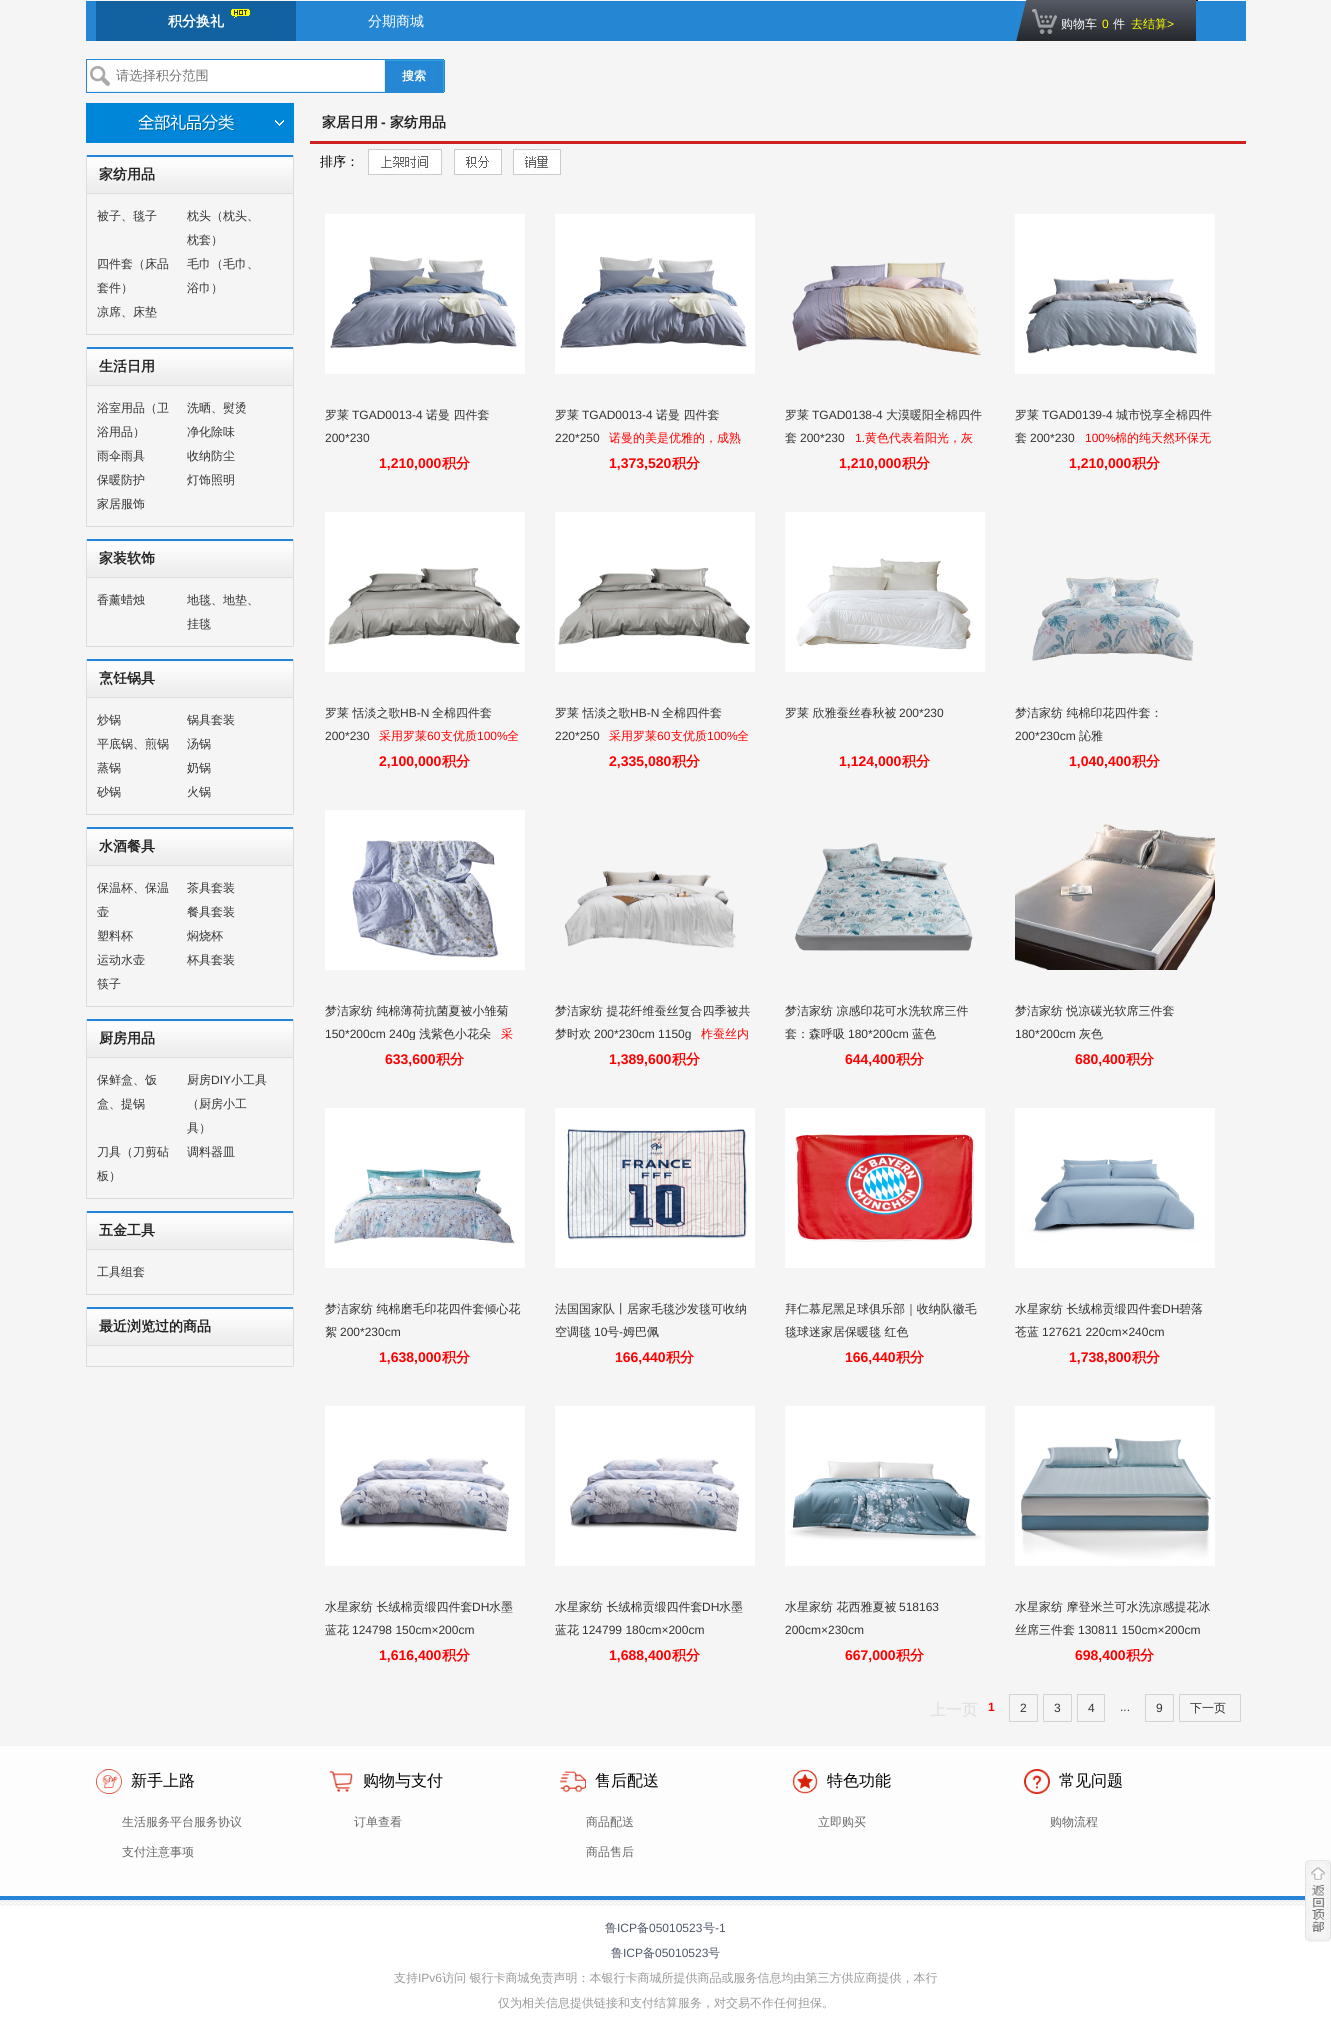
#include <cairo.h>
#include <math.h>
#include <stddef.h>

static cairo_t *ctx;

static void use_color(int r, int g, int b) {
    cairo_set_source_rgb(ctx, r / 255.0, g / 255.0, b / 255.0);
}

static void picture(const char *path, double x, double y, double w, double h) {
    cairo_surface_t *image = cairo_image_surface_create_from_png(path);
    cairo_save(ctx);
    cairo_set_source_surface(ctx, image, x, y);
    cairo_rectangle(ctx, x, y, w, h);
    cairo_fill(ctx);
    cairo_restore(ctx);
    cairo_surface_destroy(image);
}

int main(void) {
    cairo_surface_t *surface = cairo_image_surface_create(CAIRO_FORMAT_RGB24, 1331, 2026);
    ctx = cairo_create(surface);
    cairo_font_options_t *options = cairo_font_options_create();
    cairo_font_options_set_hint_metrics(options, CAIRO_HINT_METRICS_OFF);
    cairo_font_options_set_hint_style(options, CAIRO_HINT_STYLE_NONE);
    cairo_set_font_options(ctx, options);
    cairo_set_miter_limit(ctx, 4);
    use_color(245, 245, 245);
    cairo_paint(ctx);
    use_color(37, 135, 212);
    cairo_rectangle(ctx, 86, 1, 1160, 40);
    cairo_fill(ctx);
    use_color(18, 97, 160);
    cairo_rectangle(ctx, 96, 1, 200, 40);
    cairo_fill(ctx);
    cairo_select_font_face(ctx, "WenQuanYi Zen Hei", CAIRO_FONT_SLANT_NORMAL, CAIRO_FONT_WEIGHT_BOLD);
    cairo_set_font_size(ctx, 14);
    use_color(255, 255, 255);
    cairo_move_to(ctx, 168, 26);
    cairo_show_text(ctx, "积分换礼");
    picture("img1.png", 231, 9, 19, 9);
    cairo_select_font_face(ctx, "WenQuanYi Zen Hei Medium", CAIRO_FONT_SLANT_NORMAL, CAIRO_FONT_WEIGHT_NORMAL);
    cairo_move_to(ctx, 368, 26);
    cairo_show_text(ctx, "分期商城");
    picture("img2.png", 1016, 0, 182, 41);
    cairo_set_font_size(ctx, 12);
    cairo_move_to(ctx, 1061, 28);
    cairo_show_text(ctx, "购物车");
    cairo_select_font_face(ctx, "Liberation Sans", CAIRO_FONT_SLANT_NORMAL, CAIRO_FONT_WEIGHT_NORMAL);
    use_color(255, 255, 0);
    cairo_move_to(ctx, 1102, 28);
    cairo_show_text(ctx, "0");
    cairo_select_font_face(ctx, "WenQuanYi Zen Hei Medium", CAIRO_FONT_SLANT_NORMAL, CAIRO_FONT_WEIGHT_NORMAL);
    use_color(255, 255, 255);
    cairo_move_to(ctx, 1113, 28);
    cairo_show_text(ctx, "件");
    use_color(255, 255, 0);
    cairo_move_to(ctx, 1131, 28);
    cairo_show_text(ctx, "去结算");
    cairo_select_font_face(ctx, "Liberation Sans", CAIRO_FONT_SLANT_NORMAL, CAIRO_FONT_WEIGHT_NORMAL);
    cairo_move_to(ctx, 1167, 28);
    cairo_show_text(ctx, ">");
    picture("img3.png", 86, 59, 359, 34);
    cairo_select_font_face(ctx, "WenQuanYi Zen Hei Medium", CAIRO_FONT_SLANT_NORMAL, CAIRO_FONT_WEIGHT_NORMAL);
    cairo_set_font_size(ctx, 13.25);
    use_color(117, 117, 117);
    cairo_move_to(ctx, 116, 80);
    cairo_show_text(ctx, "请选择积分范围");
    cairo_select_font_face(ctx, "WenQuanYi Zen Hei", CAIRO_FONT_SLANT_NORMAL, CAIRO_FONT_WEIGHT_BOLD);
    cairo_set_font_size(ctx, 12);
    use_color(255, 255, 255);
    cairo_move_to(ctx, 402, 80);
    cairo_show_text(ctx, "搜索");
    picture("img4.png", 86, 103, 208, 40);
    use_color(221, 221, 221);
    cairo_rectangle(ctx, 293, 155, 1, 180);
    cairo_fill(ctx);
    cairo_rectangle(ctx, 86, 334, 208, 1);
    cairo_fill(ctx);
    cairo_rectangle(ctx, 86, 155, 1, 180);
    cairo_fill(ctx);
    picture("img5.png", 87, 155, 206, 38);
    cairo_rectangle(ctx, 87, 193, 206, 1);
    cairo_fill(ctx);
    cairo_set_font_size(ctx, 14);
    use_color(34, 34, 34);
    cairo_move_to(ctx, 99, 179);
    cairo_show_text(ctx, "家纺用品");
    cairo_select_font_face(ctx, "WenQuanYi Zen Hei Medium", CAIRO_FONT_SLANT_NORMAL, CAIRO_FONT_WEIGHT_NORMAL);
    cairo_set_font_size(ctx, 12);
    use_color(51, 51, 51);
    cairo_move_to(ctx, 97, 220);
    cairo_show_text(ctx, "被子、毯子");
    cairo_move_to(ctx, 187, 220);
    cairo_show_text(ctx, "枕头（枕头、");
    cairo_move_to(ctx, 187, 244);
    cairo_show_text(ctx, "枕套）");
    cairo_move_to(ctx, 97, 268);
    cairo_show_text(ctx, "四件套（床品");
    cairo_move_to(ctx, 97, 292);
    cairo_show_text(ctx, "套件）");
    cairo_move_to(ctx, 187, 268);
    cairo_show_text(ctx, "毛巾（毛巾、");
    cairo_move_to(ctx, 187, 292);
    cairo_show_text(ctx, "浴巾）");
    cairo_move_to(ctx, 97, 316);
    cairo_show_text(ctx, "凉席、床垫");
    use_color(221, 221, 221);
    cairo_rectangle(ctx, 293, 347, 1, 180);
    cairo_fill(ctx);
    cairo_rectangle(ctx, 86, 526, 208, 1);
    cairo_fill(ctx);
    cairo_rectangle(ctx, 86, 347, 1, 180);
    cairo_fill(ctx);
    picture("img5.png", 87, 347, 206, 38);
    cairo_rectangle(ctx, 87, 385, 206, 1);
    cairo_fill(ctx);
    cairo_select_font_face(ctx, "WenQuanYi Zen Hei", CAIRO_FONT_SLANT_NORMAL, CAIRO_FONT_WEIGHT_BOLD);
    cairo_set_font_size(ctx, 14);
    use_color(34, 34, 34);
    cairo_move_to(ctx, 99, 371);
    cairo_show_text(ctx, "生活日用");
    cairo_select_font_face(ctx, "WenQuanYi Zen Hei Medium", CAIRO_FONT_SLANT_NORMAL, CAIRO_FONT_WEIGHT_NORMAL);
    cairo_set_font_size(ctx, 12);
    use_color(51, 51, 51);
    cairo_move_to(ctx, 97, 412);
    cairo_show_text(ctx, "浴室用品（卫");
    cairo_move_to(ctx, 97, 436);
    cairo_show_text(ctx, "浴用品）");
    cairo_move_to(ctx, 187, 412);
    cairo_show_text(ctx, "洗晒、熨烫");
    cairo_move_to(ctx, 187, 436);
    cairo_show_text(ctx, "净化除味");
    cairo_move_to(ctx, 97, 460);
    cairo_show_text(ctx, "雨伞雨具");
    cairo_move_to(ctx, 187, 460);
    cairo_show_text(ctx, "收纳防尘");
    cairo_move_to(ctx, 97, 484);
    cairo_show_text(ctx, "保暖防护");
    cairo_move_to(ctx, 187, 484);
    cairo_show_text(ctx, "灯饰照明");
    cairo_move_to(ctx, 97, 508);
    cairo_show_text(ctx, "家居服饰");
    use_color(221, 221, 221);
    cairo_rectangle(ctx, 293, 539, 1, 108);
    cairo_fill(ctx);
    cairo_rectangle(ctx, 86, 646, 208, 1);
    cairo_fill(ctx);
    cairo_rectangle(ctx, 86, 539, 1, 108);
    cairo_fill(ctx);
    picture("img5.png", 87, 539, 206, 38);
    cairo_rectangle(ctx, 87, 577, 206, 1);
    cairo_fill(ctx);
    cairo_select_font_face(ctx, "WenQuanYi Zen Hei", CAIRO_FONT_SLANT_NORMAL, CAIRO_FONT_WEIGHT_BOLD);
    cairo_set_font_size(ctx, 14);
    use_color(34, 34, 34);
    cairo_move_to(ctx, 99, 563);
    cairo_show_text(ctx, "家装软饰");
    cairo_select_font_face(ctx, "WenQuanYi Zen Hei Medium", CAIRO_FONT_SLANT_NORMAL, CAIRO_FONT_WEIGHT_NORMAL);
    cairo_set_font_size(ctx, 12);
    use_color(51, 51, 51);
    cairo_move_to(ctx, 97, 604);
    cairo_show_text(ctx, "香薰蜡烛");
    cairo_move_to(ctx, 187, 604);
    cairo_show_text(ctx, "地毯、地垫、");
    cairo_move_to(ctx, 187, 628);
    cairo_show_text(ctx, "挂毯");
    use_color(221, 221, 221);
    cairo_rectangle(ctx, 293, 659, 1, 156);
    cairo_fill(ctx);
    cairo_rectangle(ctx, 86, 814, 208, 1);
    cairo_fill(ctx);
    cairo_rectangle(ctx, 86, 659, 1, 156);
    cairo_fill(ctx);
    picture("img5.png", 87, 659, 206, 38);
    cairo_rectangle(ctx, 87, 697, 206, 1);
    cairo_fill(ctx);
    cairo_select_font_face(ctx, "WenQuanYi Zen Hei", CAIRO_FONT_SLANT_NORMAL, CAIRO_FONT_WEIGHT_BOLD);
    cairo_set_font_size(ctx, 14);
    use_color(34, 34, 34);
    cairo_move_to(ctx, 99, 683);
    cairo_show_text(ctx, "烹饪锅具");
    cairo_select_font_face(ctx, "WenQuanYi Zen Hei Medium", CAIRO_FONT_SLANT_NORMAL, CAIRO_FONT_WEIGHT_NORMAL);
    cairo_set_font_size(ctx, 12);
    use_color(51, 51, 51);
    cairo_move_to(ctx, 97, 724);
    cairo_show_text(ctx, "炒锅");
    cairo_move_to(ctx, 187, 724);
    cairo_show_text(ctx, "锅具套装");
    cairo_move_to(ctx, 97, 748);
    cairo_show_text(ctx, "平底锅、煎锅");
    cairo_move_to(ctx, 187, 748);
    cairo_show_text(ctx, "汤锅");
    cairo_move_to(ctx, 97, 772);
    cairo_show_text(ctx, "蒸锅");
    cairo_move_to(ctx, 187, 772);
    cairo_show_text(ctx, "奶锅");
    cairo_move_to(ctx, 97, 796);
    cairo_show_text(ctx, "砂锅");
    cairo_move_to(ctx, 187, 796);
    cairo_show_text(ctx, "火锅");
    use_color(221, 221, 221);
    cairo_rectangle(ctx, 293, 827, 1, 180);
    cairo_fill(ctx);
    cairo_rectangle(ctx, 86, 1006, 208, 1);
    cairo_fill(ctx);
    cairo_rectangle(ctx, 86, 827, 1, 180);
    cairo_fill(ctx);
    picture("img5.png", 87, 827, 206, 38);
    cairo_rectangle(ctx, 87, 865, 206, 1);
    cairo_fill(ctx);
    cairo_select_font_face(ctx, "WenQuanYi Zen Hei", CAIRO_FONT_SLANT_NORMAL, CAIRO_FONT_WEIGHT_BOLD);
    cairo_set_font_size(ctx, 14);
    use_color(34, 34, 34);
    cairo_move_to(ctx, 99, 851);
    cairo_show_text(ctx, "水酒餐具");
    cairo_select_font_face(ctx, "WenQuanYi Zen Hei Medium", CAIRO_FONT_SLANT_NORMAL, CAIRO_FONT_WEIGHT_NORMAL);
    cairo_set_font_size(ctx, 12);
    use_color(51, 51, 51);
    cairo_move_to(ctx, 97, 892);
    cairo_show_text(ctx, "保温杯、保温");
    cairo_move_to(ctx, 97, 916);
    cairo_show_text(ctx, "壶");
    cairo_move_to(ctx, 187, 892);
    cairo_show_text(ctx, "茶具套装");
    cairo_move_to(ctx, 187, 916);
    cairo_show_text(ctx, "餐具套装");
    cairo_move_to(ctx, 97, 940);
    cairo_show_text(ctx, "塑料杯");
    cairo_move_to(ctx, 187, 940);
    cairo_show_text(ctx, "焖烧杯");
    cairo_move_to(ctx, 97, 964);
    cairo_show_text(ctx, "运动水壶");
    cairo_move_to(ctx, 187, 964);
    cairo_show_text(ctx, "杯具套装");
    cairo_move_to(ctx, 97, 988);
    cairo_show_text(ctx, "筷子");
    use_color(221, 221, 221);
    cairo_rectangle(ctx, 293, 1019, 1, 180);
    cairo_fill(ctx);
    cairo_rectangle(ctx, 86, 1198, 208, 1);
    cairo_fill(ctx);
    cairo_rectangle(ctx, 86, 1019, 1, 180);
    cairo_fill(ctx);
    picture("img5.png", 87, 1019, 206, 38);
    cairo_rectangle(ctx, 87, 1057, 206, 1);
    cairo_fill(ctx);
    cairo_select_font_face(ctx, "WenQuanYi Zen Hei", CAIRO_FONT_SLANT_NORMAL, CAIRO_FONT_WEIGHT_BOLD);
    cairo_set_font_size(ctx, 14);
    use_color(34, 34, 34);
    cairo_move_to(ctx, 99, 1043);
    cairo_show_text(ctx, "厨房用品");
    cairo_select_font_face(ctx, "WenQuanYi Zen Hei Medium", CAIRO_FONT_SLANT_NORMAL, CAIRO_FONT_WEIGHT_NORMAL);
    cairo_set_font_size(ctx, 12);
    use_color(51, 51, 51);
    cairo_move_to(ctx, 97, 1084);
    cairo_show_text(ctx, "保鲜盒、饭");
    cairo_move_to(ctx, 97, 1108);
    cairo_show_text(ctx, "盒、提锅");
    cairo_move_to(ctx, 187, 1084);
    cairo_show_text(ctx, "厨房");
    cairo_select_font_face(ctx, "Liberation Sans", CAIRO_FONT_SLANT_NORMAL, CAIRO_FONT_WEIGHT_NORMAL);
    cairo_move_to(ctx, 211, 1084);
    cairo_show_text(ctx, "DIY");
    cairo_select_font_face(ctx, "WenQuanYi Zen Hei Medium", CAIRO_FONT_SLANT_NORMAL, CAIRO_FONT_WEIGHT_NORMAL);
    cairo_move_to(ctx, 231, 1084);
    cairo_show_text(ctx, "小工具");
    cairo_move_to(ctx, 187, 1108);
    cairo_show_text(ctx, "（厨房小工");
    cairo_move_to(ctx, 187, 1132);
    cairo_show_text(ctx, "具）");
    cairo_move_to(ctx, 97, 1156);
    cairo_show_text(ctx, "刀具（刀剪砧");
    cairo_move_to(ctx, 97, 1180);
    cairo_show_text(ctx, "板）");
    cairo_move_to(ctx, 187, 1156);
    cairo_show_text(ctx, "调料器皿");
    use_color(221, 221, 221);
    cairo_rectangle(ctx, 293, 1211, 1, 84);
    cairo_fill(ctx);
    cairo_rectangle(ctx, 86, 1294, 208, 1);
    cairo_fill(ctx);
    cairo_rectangle(ctx, 86, 1211, 1, 84);
    cairo_fill(ctx);
    picture("img5.png", 87, 1211, 206, 38);
    cairo_rectangle(ctx, 87, 1249, 206, 1);
    cairo_fill(ctx);
    cairo_select_font_face(ctx, "WenQuanYi Zen Hei", CAIRO_FONT_SLANT_NORMAL, CAIRO_FONT_WEIGHT_BOLD);
    cairo_set_font_size(ctx, 14);
    use_color(34, 34, 34);
    cairo_move_to(ctx, 99, 1235);
    cairo_show_text(ctx, "五金工具");
    cairo_select_font_face(ctx, "WenQuanYi Zen Hei Medium", CAIRO_FONT_SLANT_NORMAL, CAIRO_FONT_WEIGHT_NORMAL);
    cairo_set_font_size(ctx, 12);
    use_color(51, 51, 51);
    cairo_move_to(ctx, 97, 1276);
    cairo_show_text(ctx, "工具组套");
    use_color(221, 221, 221);
    cairo_rectangle(ctx, 293, 1307, 1, 60);
    cairo_fill(ctx);
    cairo_rectangle(ctx, 86, 1366, 208, 1);
    cairo_fill(ctx);
    cairo_rectangle(ctx, 86, 1307, 1, 60);
    cairo_fill(ctx);
    picture("img5.png", 87, 1307, 206, 38);
    cairo_rectangle(ctx, 87, 1345, 206, 1);
    cairo_fill(ctx);
    cairo_select_font_face(ctx, "WenQuanYi Zen Hei", CAIRO_FONT_SLANT_NORMAL, CAIRO_FONT_WEIGHT_BOLD);
    cairo_set_font_size(ctx, 14);
    use_color(34, 34, 34);
    cairo_move_to(ctx, 99, 1331);
    cairo_show_text(ctx, "最近浏览过的商品");
    use_color(207, 32, 32);
    cairo_rectangle(ctx, 310, 141, 936, 3);
    cairo_fill(ctx);
    use_color(34, 34, 34);
    cairo_move_to(ctx, 322, 127);
    cairo_show_text(ctx, "家居日用");
    cairo_select_font_face(ctx, "Liberation Sans", CAIRO_FONT_SLANT_NORMAL, CAIRO_FONT_WEIGHT_BOLD);
    cairo_move_to(ctx, 381, 127);
    cairo_show_text(ctx, "-");
    cairo_select_font_face(ctx, "WenQuanYi Zen Hei", CAIRO_FONT_SLANT_NORMAL, CAIRO_FONT_WEIGHT_BOLD);
    cairo_move_to(ctx, 390, 127);
    cairo_show_text(ctx, "家纺用品");
    cairo_select_font_face(ctx, "WenQuanYi Zen Hei Medium", CAIRO_FONT_SLANT_NORMAL, CAIRO_FONT_WEIGHT_NORMAL);
    cairo_set_font_size(ctx, 13);
    use_color(0, 0, 0);
    cairo_move_to(ctx, 320, 166);
    cairo_show_text(ctx, "排序：");
    picture("img6.png", 368, 149, 74, 26);
    picture("img7.png", 454, 149, 48, 26);
    picture("img8.png", 513, 149, 48, 26);
    picture("img9.png", 325, 214, 200, 160);
    cairo_set_font_size(ctx, 12);
    use_color(51, 51, 51);
    cairo_move_to(ctx, 325, 419);
    cairo_show_text(ctx, "罗莱");
    cairo_select_font_face(ctx, "Liberation Sans", CAIRO_FONT_SLANT_NORMAL, CAIRO_FONT_WEIGHT_NORMAL);
    cairo_move_to(ctx, 352, 419);
    cairo_show_text(ctx, "TGAD0013-4");
    cairo_select_font_face(ctx, "WenQuanYi Zen Hei Medium", CAIRO_FONT_SLANT_NORMAL, CAIRO_FONT_WEIGHT_NORMAL);
    cairo_move_to(ctx, 426, 419);
    cairo_show_text(ctx, "诺曼 四件套");
    cairo_select_font_face(ctx, "Liberation Sans", CAIRO_FONT_SLANT_NORMAL, CAIRO_FONT_WEIGHT_NORMAL);
    cairo_move_to(ctx, 325, 442);
    cairo_show_text(ctx, "200*230");
    cairo_select_font_face(ctx, "Liberation Sans", CAIRO_FONT_SLANT_NORMAL, CAIRO_FONT_WEIGHT_BOLD);
    cairo_set_font_size(ctx, 14);
    use_color(255, 0, 0);
    cairo_move_to(ctx, 379, 468);
    cairo_show_text(ctx, "1,210,000");
    cairo_select_font_face(ctx, "WenQuanYi Zen Hei", CAIRO_FONT_SLANT_NORMAL, CAIRO_FONT_WEIGHT_BOLD);
    cairo_move_to(ctx, 442, 468);
    cairo_show_text(ctx, "积分");
    picture("img9.png", 555, 214, 200, 160);
    cairo_select_font_face(ctx, "WenQuanYi Zen Hei Medium", CAIRO_FONT_SLANT_NORMAL, CAIRO_FONT_WEIGHT_NORMAL);
    cairo_set_font_size(ctx, 12);
    use_color(51, 51, 51);
    cairo_move_to(ctx, 555, 419);
    cairo_show_text(ctx, "罗莱");
    cairo_select_font_face(ctx, "Liberation Sans", CAIRO_FONT_SLANT_NORMAL, CAIRO_FONT_WEIGHT_NORMAL);
    cairo_move_to(ctx, 582, 419);
    cairo_show_text(ctx, "TGAD0013-4");
    cairo_select_font_face(ctx, "WenQuanYi Zen Hei Medium", CAIRO_FONT_SLANT_NORMAL, CAIRO_FONT_WEIGHT_NORMAL);
    cairo_move_to(ctx, 656, 419);
    cairo_show_text(ctx, "诺曼 四件套");
    cairo_select_font_face(ctx, "Liberation Sans", CAIRO_FONT_SLANT_NORMAL, CAIRO_FONT_WEIGHT_NORMAL);
    cairo_move_to(ctx, 555, 442);
    cairo_show_text(ctx, "220*250");
    cairo_select_font_face(ctx, "WenQuanYi Zen Hei Medium", CAIRO_FONT_SLANT_NORMAL, CAIRO_FONT_WEIGHT_NORMAL);
    use_color(255, 0, 0);
    cairo_move_to(ctx, 609, 442);
    cairo_show_text(ctx, "诺曼的美是优雅的，成熟");
    cairo_select_font_face(ctx, "Liberation Sans", CAIRO_FONT_SLANT_NORMAL, CAIRO_FONT_WEIGHT_BOLD);
    cairo_set_font_size(ctx, 14);
    cairo_move_to(ctx, 609, 468);
    cairo_show_text(ctx, "1,373,520");
    cairo_select_font_face(ctx, "WenQuanYi Zen Hei", CAIRO_FONT_SLANT_NORMAL, CAIRO_FONT_WEIGHT_BOLD);
    cairo_move_to(ctx, 672, 468);
    cairo_show_text(ctx, "积分");
    picture("img10.png", 792, 262, 190, 94);
    cairo_select_font_face(ctx, "WenQuanYi Zen Hei Medium", CAIRO_FONT_SLANT_NORMAL, CAIRO_FONT_WEIGHT_NORMAL);
    cairo_set_font_size(ctx, 12);
    use_color(51, 51, 51);
    cairo_move_to(ctx, 785, 419);
    cairo_show_text(ctx, "罗莱");
    cairo_select_font_face(ctx, "Liberation Sans", CAIRO_FONT_SLANT_NORMAL, CAIRO_FONT_WEIGHT_NORMAL);
    cairo_move_to(ctx, 812, 419);
    cairo_show_text(ctx, "TGAD0138-4");
    cairo_select_font_face(ctx, "WenQuanYi Zen Hei Medium", CAIRO_FONT_SLANT_NORMAL, CAIRO_FONT_WEIGHT_NORMAL);
    cairo_move_to(ctx, 886, 419);
    cairo_show_text(ctx, "大漠暖阳全棉四件");
    cairo_move_to(ctx, 785, 442);
    cairo_show_text(ctx, "套");
    cairo_select_font_face(ctx, "Liberation Sans", CAIRO_FONT_SLANT_NORMAL, CAIRO_FONT_WEIGHT_NORMAL);
    cairo_move_to(ctx, 800, 442);
    cairo_show_text(ctx, "200*230");
    use_color(255, 0, 0);
    cairo_move_to(ctx, 855, 442);
    cairo_show_text(ctx, "1.");
    cairo_select_font_face(ctx, "WenQuanYi Zen Hei Medium", CAIRO_FONT_SLANT_NORMAL, CAIRO_FONT_WEIGHT_NORMAL);
    cairo_move_to(ctx, 865, 442);
    cairo_show_text(ctx, "黄色代表着阳光，灰");
    cairo_select_font_face(ctx, "Liberation Sans", CAIRO_FONT_SLANT_NORMAL, CAIRO_FONT_WEIGHT_BOLD);
    cairo_set_font_size(ctx, 14);
    cairo_move_to(ctx, 839, 468);
    cairo_show_text(ctx, "1,210,000");
    cairo_select_font_face(ctx, "WenQuanYi Zen Hei", CAIRO_FONT_SLANT_NORMAL, CAIRO_FONT_WEIGHT_BOLD);
    cairo_move_to(ctx, 902, 468);
    cairo_show_text(ctx, "积分");
    picture("img11.png", 1015, 214, 200, 160);
    cairo_select_font_face(ctx, "WenQuanYi Zen Hei Medium", CAIRO_FONT_SLANT_NORMAL, CAIRO_FONT_WEIGHT_NORMAL);
    cairo_set_font_size(ctx, 12);
    use_color(51, 51, 51);
    cairo_move_to(ctx, 1015, 419);
    cairo_show_text(ctx, "罗莱");
    cairo_select_font_face(ctx, "Liberation Sans", CAIRO_FONT_SLANT_NORMAL, CAIRO_FONT_WEIGHT_NORMAL);
    cairo_move_to(ctx, 1042, 419);
    cairo_show_text(ctx, "TGAD0139-4");
    cairo_select_font_face(ctx, "WenQuanYi Zen Hei Medium", CAIRO_FONT_SLANT_NORMAL, CAIRO_FONT_WEIGHT_NORMAL);
    cairo_move_to(ctx, 1116, 419);
    cairo_show_text(ctx, "城市悦享全棉四件");
    cairo_move_to(ctx, 1015, 442);
    cairo_show_text(ctx, "套");
    cairo_select_font_face(ctx, "Liberation Sans", CAIRO_FONT_SLANT_NORMAL, CAIRO_FONT_WEIGHT_NORMAL);
    cairo_move_to(ctx, 1030, 442);
    cairo_show_text(ctx, "200*230");
    use_color(255, 0, 0);
    cairo_move_to(ctx, 1085, 442);
    cairo_show_text(ctx, "100%");
    cairo_select_font_face(ctx, "WenQuanYi Zen Hei Medium", CAIRO_FONT_SLANT_NORMAL, CAIRO_FONT_WEIGHT_NORMAL);
    cairo_move_to(ctx, 1115, 442);
    cairo_show_text(ctx, "棉的纯天然环保无");
    cairo_select_font_face(ctx, "Liberation Sans", CAIRO_FONT_SLANT_NORMAL, CAIRO_FONT_WEIGHT_BOLD);
    cairo_set_font_size(ctx, 14);
    cairo_move_to(ctx, 1069, 468);
    cairo_show_text(ctx, "1,210,000");
    cairo_select_font_face(ctx, "WenQuanYi Zen Hei", CAIRO_FONT_SLANT_NORMAL, CAIRO_FONT_WEIGHT_BOLD);
    cairo_move_to(ctx, 1132, 468);
    cairo_show_text(ctx, "积分");
    picture("img12.png", 325, 512, 200, 160);
    cairo_select_font_face(ctx, "WenQuanYi Zen Hei Medium", CAIRO_FONT_SLANT_NORMAL, CAIRO_FONT_WEIGHT_NORMAL);
    cairo_set_font_size(ctx, 12);
    use_color(51, 51, 51);
    cairo_move_to(ctx, 325, 717);
    cairo_show_text(ctx, "罗莱 恬淡之歌");
    cairo_select_font_face(ctx, "Liberation Sans", CAIRO_FONT_SLANT_NORMAL, CAIRO_FONT_WEIGHT_NORMAL);
    cairo_move_to(ctx, 400, 717);
    cairo_show_text(ctx, "HB-N");
    cairo_select_font_face(ctx, "WenQuanYi Zen Hei Medium", CAIRO_FONT_SLANT_NORMAL, CAIRO_FONT_WEIGHT_NORMAL);
    cairo_move_to(ctx, 432, 717);
    cairo_show_text(ctx, "全棉四件套");
    cairo_select_font_face(ctx, "Liberation Sans", CAIRO_FONT_SLANT_NORMAL, CAIRO_FONT_WEIGHT_NORMAL);
    cairo_move_to(ctx, 325, 740);
    cairo_show_text(ctx, "200*230");
    cairo_select_font_face(ctx, "WenQuanYi Zen Hei Medium", CAIRO_FONT_SLANT_NORMAL, CAIRO_FONT_WEIGHT_NORMAL);
    use_color(255, 0, 0);
    cairo_move_to(ctx, 379, 740);
    cairo_show_text(ctx, "采用罗莱");
    cairo_select_font_face(ctx, "Liberation Sans", CAIRO_FONT_SLANT_NORMAL, CAIRO_FONT_WEIGHT_NORMAL);
    cairo_move_to(ctx, 427, 740);
    cairo_show_text(ctx, "60");
    cairo_select_font_face(ctx, "WenQuanYi Zen Hei Medium", CAIRO_FONT_SLANT_NORMAL, CAIRO_FONT_WEIGHT_NORMAL);
    cairo_move_to(ctx, 441, 740);
    cairo_show_text(ctx, "支优质");
    cairo_select_font_face(ctx, "Liberation Sans", CAIRO_FONT_SLANT_NORMAL, CAIRO_FONT_WEIGHT_NORMAL);
    cairo_move_to(ctx, 477, 740);
    cairo_show_text(ctx, "100%");
    cairo_select_font_face(ctx, "WenQuanYi Zen Hei Medium", CAIRO_FONT_SLANT_NORMAL, CAIRO_FONT_WEIGHT_NORMAL);
    cairo_move_to(ctx, 507, 740);
    cairo_show_text(ctx, "全");
    cairo_select_font_face(ctx, "Liberation Sans", CAIRO_FONT_SLANT_NORMAL, CAIRO_FONT_WEIGHT_BOLD);
    cairo_set_font_size(ctx, 14);
    cairo_move_to(ctx, 379, 766);
    cairo_show_text(ctx, "2,100,000");
    cairo_select_font_face(ctx, "WenQuanYi Zen Hei", CAIRO_FONT_SLANT_NORMAL, CAIRO_FONT_WEIGHT_BOLD);
    cairo_move_to(ctx, 442, 766);
    cairo_show_text(ctx, "积分");
    picture("img12.png", 555, 512, 200, 160);
    cairo_select_font_face(ctx, "WenQuanYi Zen Hei Medium", CAIRO_FONT_SLANT_NORMAL, CAIRO_FONT_WEIGHT_NORMAL);
    cairo_set_font_size(ctx, 12);
    use_color(51, 51, 51);
    cairo_move_to(ctx, 555, 717);
    cairo_show_text(ctx, "罗莱 恬淡之歌");
    cairo_select_font_face(ctx, "Liberation Sans", CAIRO_FONT_SLANT_NORMAL, CAIRO_FONT_WEIGHT_NORMAL);
    cairo_move_to(ctx, 630, 717);
    cairo_show_text(ctx, "HB-N");
    cairo_select_font_face(ctx, "WenQuanYi Zen Hei Medium", CAIRO_FONT_SLANT_NORMAL, CAIRO_FONT_WEIGHT_NORMAL);
    cairo_move_to(ctx, 662, 717);
    cairo_show_text(ctx, "全棉四件套");
    cairo_select_font_face(ctx, "Liberation Sans", CAIRO_FONT_SLANT_NORMAL, CAIRO_FONT_WEIGHT_NORMAL);
    cairo_move_to(ctx, 555, 740);
    cairo_show_text(ctx, "220*250");
    cairo_select_font_face(ctx, "WenQuanYi Zen Hei Medium", CAIRO_FONT_SLANT_NORMAL, CAIRO_FONT_WEIGHT_NORMAL);
    use_color(255, 0, 0);
    cairo_move_to(ctx, 609, 740);
    cairo_show_text(ctx, "采用罗莱");
    cairo_select_font_face(ctx, "Liberation Sans", CAIRO_FONT_SLANT_NORMAL, CAIRO_FONT_WEIGHT_NORMAL);
    cairo_move_to(ctx, 657, 740);
    cairo_show_text(ctx, "60");
    cairo_select_font_face(ctx, "WenQuanYi Zen Hei Medium", CAIRO_FONT_SLANT_NORMAL, CAIRO_FONT_WEIGHT_NORMAL);
    cairo_move_to(ctx, 671, 740);
    cairo_show_text(ctx, "支优质");
    cairo_select_font_face(ctx, "Liberation Sans", CAIRO_FONT_SLANT_NORMAL, CAIRO_FONT_WEIGHT_NORMAL);
    cairo_move_to(ctx, 707, 740);
    cairo_show_text(ctx, "100%");
    cairo_select_font_face(ctx, "WenQuanYi Zen Hei Medium", CAIRO_FONT_SLANT_NORMAL, CAIRO_FONT_WEIGHT_NORMAL);
    cairo_move_to(ctx, 737, 740);
    cairo_show_text(ctx, "全");
    cairo_select_font_face(ctx, "Liberation Sans", CAIRO_FONT_SLANT_NORMAL, CAIRO_FONT_WEIGHT_BOLD);
    cairo_set_font_size(ctx, 14);
    cairo_move_to(ctx, 609, 766);
    cairo_show_text(ctx, "2,335,080");
    cairo_select_font_face(ctx, "WenQuanYi Zen Hei", CAIRO_FONT_SLANT_NORMAL, CAIRO_FONT_WEIGHT_BOLD);
    cairo_move_to(ctx, 672, 766);
    cairo_show_text(ctx, "积分");
    picture("img13.png", 785, 512, 200, 160);
    cairo_select_font_face(ctx, "WenQuanYi Zen Hei Medium", CAIRO_FONT_SLANT_NORMAL, CAIRO_FONT_WEIGHT_NORMAL);
    cairo_set_font_size(ctx, 12);
    use_color(51, 51, 51);
    cairo_move_to(ctx, 785, 717);
    cairo_show_text(ctx, "罗莱 欣雅蚕丝春秋被");
    cairo_select_font_face(ctx, "Liberation Sans", CAIRO_FONT_SLANT_NORMAL, CAIRO_FONT_WEIGHT_NORMAL);
    cairo_move_to(ctx, 899, 717);
    cairo_show_text(ctx, "200*230");
    cairo_select_font_face(ctx, "Liberation Sans", CAIRO_FONT_SLANT_NORMAL, CAIRO_FONT_WEIGHT_BOLD);
    cairo_set_font_size(ctx, 14);
    use_color(255, 0, 0);
    cairo_move_to(ctx, 839, 766);
    cairo_show_text(ctx, "1,124,000");
    cairo_select_font_face(ctx, "WenQuanYi Zen Hei", CAIRO_FONT_SLANT_NORMAL, CAIRO_FONT_WEIGHT_BOLD);
    cairo_move_to(ctx, 902, 766);
    cairo_show_text(ctx, "积分");
    picture("img14.png", 1032, 577, 162, 84);
    cairo_select_font_face(ctx, "WenQuanYi Zen Hei Medium", CAIRO_FONT_SLANT_NORMAL, CAIRO_FONT_WEIGHT_NORMAL);
    cairo_set_font_size(ctx, 12);
    use_color(51, 51, 51);
    cairo_move_to(ctx, 1015, 717);
    cairo_show_text(ctx, "梦洁家纺 纯棉印花四件套：");
    cairo_select_font_face(ctx, "Liberation Sans", CAIRO_FONT_SLANT_NORMAL, CAIRO_FONT_WEIGHT_NORMAL);
    cairo_move_to(ctx, 1015, 740);
    cairo_show_text(ctx, "200*230cm");
    cairo_select_font_face(ctx, "WenQuanYi Zen Hei Medium", CAIRO_FONT_SLANT_NORMAL, CAIRO_FONT_WEIGHT_NORMAL);
    cairo_move_to(ctx, 1079, 740);
    cairo_show_text(ctx, "訫雅");
    cairo_select_font_face(ctx, "Liberation Sans", CAIRO_FONT_SLANT_NORMAL, CAIRO_FONT_WEIGHT_BOLD);
    cairo_set_font_size(ctx, 14);
    use_color(255, 0, 0);
    cairo_move_to(ctx, 1069, 766);
    cairo_show_text(ctx, "1,040,400");
    cairo_select_font_face(ctx, "WenQuanYi Zen Hei", CAIRO_FONT_SLANT_NORMAL, CAIRO_FONT_WEIGHT_BOLD);
    cairo_move_to(ctx, 1132, 766);
    cairo_show_text(ctx, "积分");
    picture("img15.png", 325, 810, 200, 160);
    cairo_select_font_face(ctx, "WenQuanYi Zen Hei Medium", CAIRO_FONT_SLANT_NORMAL, CAIRO_FONT_WEIGHT_NORMAL);
    cairo_set_font_size(ctx, 12);
    use_color(51, 51, 51);
    cairo_move_to(ctx, 325, 1015);
    cairo_show_text(ctx, "梦洁家纺 纯棉薄荷抗菌夏被小雏菊");
    cairo_save(ctx);
    cairo_rectangle(ctx, 325, 1000, 200, 40);
    cairo_clip(ctx);
    cairo_select_font_face(ctx, "Liberation Sans", CAIRO_FONT_SLANT_NORMAL, CAIRO_FONT_WEIGHT_NORMAL);
    cairo_move_to(ctx, 325, 1038);
    cairo_show_text(ctx, "150*200cm 240g");
    cairo_restore(ctx);
    cairo_move_to(ctx, 419, 1038);
    cairo_show_text(ctx, "浅紫色小花朵");
    use_color(255, 0, 0);
    cairo_move_to(ctx, 501, 1038);
    cairo_show_text(ctx, "采");
    cairo_select_font_face(ctx, "Liberation Sans", CAIRO_FONT_SLANT_NORMAL, CAIRO_FONT_WEIGHT_BOLD);
    cairo_set_font_size(ctx, 14);
    cairo_move_to(ctx, 385, 1064);
    cairo_show_text(ctx, "633,600");
    cairo_select_font_face(ctx, "WenQuanYi Zen Hei", CAIRO_FONT_SLANT_NORMAL, CAIRO_FONT_WEIGHT_BOLD);
    cairo_move_to(ctx, 436, 1064);
    cairo_show_text(ctx, "积分");
    picture("img16.png", 564, 870, 172, 78);
    cairo_select_font_face(ctx, "WenQuanYi Zen Hei Medium", CAIRO_FONT_SLANT_NORMAL, CAIRO_FONT_WEIGHT_NORMAL);
    cairo_set_font_size(ctx, 12);
    use_color(51, 51, 51);
    cairo_move_to(ctx, 555, 1015);
    cairo_show_text(ctx, "梦洁家纺 提花纤维蚕丝复合四季被共");
    cairo_move_to(ctx, 555, 1038);
    cairo_show_text(ctx, "梦时欢");
    cairo_save(ctx);
    cairo_rectangle(ctx, 555, 1000, 200, 40);
    cairo_clip(ctx);
    cairo_select_font_face(ctx, "Liberation Sans", CAIRO_FONT_SLANT_NORMAL, CAIRO_FONT_WEIGHT_NORMAL);
    cairo_move_to(ctx, 594, 1038);
    cairo_show_text(ctx, "200*230cm 1150g");
    cairo_restore(ctx);
    use_color(255, 0, 0);
    cairo_move_to(ctx, 701, 1038);
    cairo_show_text(ctx, "柞蚕丝内");
    cairo_select_font_face(ctx, "Liberation Sans", CAIRO_FONT_SLANT_NORMAL, CAIRO_FONT_WEIGHT_BOLD);
    cairo_set_font_size(ctx, 14);
    cairo_move_to(ctx, 609, 1064);
    cairo_show_text(ctx, "1,389,600");
    cairo_select_font_face(ctx, "WenQuanYi Zen Hei", CAIRO_FONT_SLANT_NORMAL, CAIRO_FONT_WEIGHT_BOLD);
    cairo_move_to(ctx, 672, 1064);
    cairo_show_text(ctx, "积分");
    picture("img17.png", 795, 843, 178, 108);
    cairo_select_font_face(ctx, "WenQuanYi Zen Hei Medium", CAIRO_FONT_SLANT_NORMAL, CAIRO_FONT_WEIGHT_NORMAL);
    cairo_set_font_size(ctx, 12);
    use_color(51, 51, 51);
    cairo_move_to(ctx, 785, 1015);
    cairo_show_text(ctx, "梦洁家纺 凉感印花可水洗软席三件");
    cairo_move_to(ctx, 785, 1038);
    cairo_show_text(ctx, "套：森呼吸");
    cairo_select_font_face(ctx, "Liberation Sans", CAIRO_FONT_SLANT_NORMAL, CAIRO_FONT_WEIGHT_NORMAL);
    cairo_move_to(ctx, 848, 1038);
    cairo_show_text(ctx, "180*200cm");
    cairo_select_font_face(ctx, "WenQuanYi Zen Hei Medium", CAIRO_FONT_SLANT_NORMAL, CAIRO_FONT_WEIGHT_NORMAL);
    cairo_move_to(ctx, 912, 1038);
    cairo_show_text(ctx, "蓝色");
    cairo_select_font_face(ctx, "Liberation Sans", CAIRO_FONT_SLANT_NORMAL, CAIRO_FONT_WEIGHT_BOLD);
    cairo_set_font_size(ctx, 14);
    use_color(255, 0, 0);
    cairo_move_to(ctx, 845, 1064);
    cairo_show_text(ctx, "644,400");
    cairo_select_font_face(ctx, "WenQuanYi Zen Hei", CAIRO_FONT_SLANT_NORMAL, CAIRO_FONT_WEIGHT_BOLD);
    cairo_move_to(ctx, 896, 1064);
    cairo_show_text(ctx, "积分");
    picture("img18.png", 1015, 824, 200, 146);
    cairo_select_font_face(ctx, "WenQuanYi Zen Hei Medium", CAIRO_FONT_SLANT_NORMAL, CAIRO_FONT_WEIGHT_NORMAL);
    cairo_set_font_size(ctx, 12);
    use_color(51, 51, 51);
    cairo_move_to(ctx, 1015, 1015);
    cairo_show_text(ctx, "梦洁家纺 悦凉碳光软席三件套");
    cairo_select_font_face(ctx, "Liberation Sans", CAIRO_FONT_SLANT_NORMAL, CAIRO_FONT_WEIGHT_NORMAL);
    cairo_move_to(ctx, 1015, 1038);
    cairo_show_text(ctx, "180*200cm");
    cairo_select_font_face(ctx, "WenQuanYi Zen Hei Medium", CAIRO_FONT_SLANT_NORMAL, CAIRO_FONT_WEIGHT_NORMAL);
    cairo_move_to(ctx, 1079, 1038);
    cairo_show_text(ctx, "灰色");
    cairo_select_font_face(ctx, "Liberation Sans", CAIRO_FONT_SLANT_NORMAL, CAIRO_FONT_WEIGHT_BOLD);
    cairo_set_font_size(ctx, 14);
    use_color(255, 0, 0);
    cairo_move_to(ctx, 1075, 1064);
    cairo_show_text(ctx, "680,400");
    cairo_select_font_face(ctx, "WenQuanYi Zen Hei", CAIRO_FONT_SLANT_NORMAL, CAIRO_FONT_WEIGHT_BOLD);
    cairo_move_to(ctx, 1126, 1064);
    cairo_show_text(ctx, "积分");
    picture("img19.png", 325, 1108, 200, 160);
    cairo_select_font_face(ctx, "WenQuanYi Zen Hei Medium", CAIRO_FONT_SLANT_NORMAL, CAIRO_FONT_WEIGHT_NORMAL);
    cairo_set_font_size(ctx, 12);
    use_color(51, 51, 51);
    cairo_move_to(ctx, 325, 1313);
    cairo_show_text(ctx, "梦洁家纺 纯棉磨毛印花四件套倾心花");
    cairo_move_to(ctx, 325, 1336);
    cairo_show_text(ctx, "絮");
    cairo_select_font_face(ctx, "Liberation Sans", CAIRO_FONT_SLANT_NORMAL, CAIRO_FONT_WEIGHT_NORMAL);
    cairo_move_to(ctx, 340, 1336);
    cairo_show_text(ctx, "200*230cm");
    cairo_select_font_face(ctx, "Liberation Sans", CAIRO_FONT_SLANT_NORMAL, CAIRO_FONT_WEIGHT_BOLD);
    cairo_set_font_size(ctx, 14);
    use_color(255, 0, 0);
    cairo_move_to(ctx, 379, 1362);
    cairo_show_text(ctx, "1,638,000");
    cairo_select_font_face(ctx, "WenQuanYi Zen Hei", CAIRO_FONT_SLANT_NORMAL, CAIRO_FONT_WEIGHT_BOLD);
    cairo_move_to(ctx, 442, 1362);
    cairo_show_text(ctx, "积分");
    picture("img20.png", 555, 1108, 200, 160);
    cairo_select_font_face(ctx, "WenQuanYi Zen Hei Medium", CAIRO_FONT_SLANT_NORMAL, CAIRO_FONT_WEIGHT_NORMAL);
    cairo_set_font_size(ctx, 12);
    use_color(51, 51, 51);
    cairo_move_to(ctx, 555, 1313);
    cairo_show_text(ctx, "法国国家队丨居家毛毯沙发毯可收纳");
    cairo_move_to(ctx, 555, 1336);
    cairo_show_text(ctx, "空调毯");
    cairo_select_font_face(ctx, "Liberation Sans", CAIRO_FONT_SLANT_NORMAL, CAIRO_FONT_WEIGHT_NORMAL);
    cairo_move_to(ctx, 594, 1336);
    cairo_show_text(ctx, "10");
    cairo_select_font_face(ctx, "WenQuanYi Zen Hei Medium", CAIRO_FONT_SLANT_NORMAL, CAIRO_FONT_WEIGHT_NORMAL);
    cairo_move_to(ctx, 607, 1336);
    cairo_show_text(ctx, "号");
    cairo_select_font_face(ctx, "Liberation Sans", CAIRO_FONT_SLANT_NORMAL, CAIRO_FONT_WEIGHT_NORMAL);
    cairo_move_to(ctx, 619, 1336);
    cairo_show_text(ctx, "-");
    cairo_select_font_face(ctx, "WenQuanYi Zen Hei Medium", CAIRO_FONT_SLANT_NORMAL, CAIRO_FONT_WEIGHT_NORMAL);
    cairo_move_to(ctx, 623, 1336);
    cairo_show_text(ctx, "姆巴佩");
    cairo_select_font_face(ctx, "Liberation Sans", CAIRO_FONT_SLANT_NORMAL, CAIRO_FONT_WEIGHT_BOLD);
    cairo_set_font_size(ctx, 14);
    use_color(255, 0, 0);
    cairo_move_to(ctx, 615, 1362);
    cairo_show_text(ctx, "166,440");
    cairo_select_font_face(ctx, "WenQuanYi Zen Hei", CAIRO_FONT_SLANT_NORMAL, CAIRO_FONT_WEIGHT_BOLD);
    cairo_move_to(ctx, 666, 1362);
    cairo_show_text(ctx, "积分");
    picture("img21.png", 785, 1108, 200, 160);
    cairo_select_font_face(ctx, "WenQuanYi Zen Hei Medium", CAIRO_FONT_SLANT_NORMAL, CAIRO_FONT_WEIGHT_NORMAL);
    cairo_set_font_size(ctx, 12);
    use_color(51, 51, 51);
    cairo_move_to(ctx, 785, 1313);
    cairo_show_text(ctx, "拜仁慕尼黑足球俱乐部｜收纳队徽毛");
    cairo_move_to(ctx, 785, 1336);
    cairo_show_text(ctx, "毯球迷家居保暖毯 红色");
    cairo_select_font_face(ctx, "Liberation Sans", CAIRO_FONT_SLANT_NORMAL, CAIRO_FONT_WEIGHT_BOLD);
    cairo_set_font_size(ctx, 14);
    use_color(255, 0, 0);
    cairo_move_to(ctx, 845, 1362);
    cairo_show_text(ctx, "166,440");
    cairo_select_font_face(ctx, "WenQuanYi Zen Hei", CAIRO_FONT_SLANT_NORMAL, CAIRO_FONT_WEIGHT_BOLD);
    cairo_move_to(ctx, 896, 1362);
    cairo_show_text(ctx, "积分");
    picture("img22.png", 1015, 1108, 200, 160);
    cairo_select_font_face(ctx, "WenQuanYi Zen Hei Medium", CAIRO_FONT_SLANT_NORMAL, CAIRO_FONT_WEIGHT_NORMAL);
    cairo_set_font_size(ctx, 12);
    use_color(51, 51, 51);
    cairo_move_to(ctx, 1015, 1313);
    cairo_show_text(ctx, "水星家纺 长绒棉贡缎四件套");
    cairo_select_font_face(ctx, "Liberation Sans", CAIRO_FONT_SLANT_NORMAL, CAIRO_FONT_WEIGHT_NORMAL);
    cairo_move_to(ctx, 1162, 1313);
    cairo_show_text(ctx, "DH");
    cairo_select_font_face(ctx, "WenQuanYi Zen Hei Medium", CAIRO_FONT_SLANT_NORMAL, CAIRO_FONT_WEIGHT_NORMAL);
    cairo_move_to(ctx, 1179, 1313);
    cairo_show_text(ctx, "碧落");
    cairo_move_to(ctx, 1015, 1336);
    cairo_show_text(ctx, "苍蓝");
    cairo_select_font_face(ctx, "Liberation Sans", CAIRO_FONT_SLANT_NORMAL, CAIRO_FONT_WEIGHT_NORMAL);
    cairo_move_to(ctx, 1042, 1336);
    cairo_show_text(ctx, "127621 220cm×240cm");
    cairo_select_font_face(ctx, "Liberation Sans", CAIRO_FONT_SLANT_NORMAL, CAIRO_FONT_WEIGHT_BOLD);
    cairo_set_font_size(ctx, 14);
    use_color(255, 0, 0);
    cairo_move_to(ctx, 1069, 1362);
    cairo_show_text(ctx, "1,738,800");
    cairo_select_font_face(ctx, "WenQuanYi Zen Hei", CAIRO_FONT_SLANT_NORMAL, CAIRO_FONT_WEIGHT_BOLD);
    cairo_move_to(ctx, 1132, 1362);
    cairo_show_text(ctx, "积分");
    picture("img23.png", 325, 1406, 200, 160);
    cairo_select_font_face(ctx, "WenQuanYi Zen Hei Medium", CAIRO_FONT_SLANT_NORMAL, CAIRO_FONT_WEIGHT_NORMAL);
    cairo_set_font_size(ctx, 12);
    use_color(51, 51, 51);
    cairo_move_to(ctx, 325, 1611);
    cairo_show_text(ctx, "水星家纺 长绒棉贡缎四件套");
    cairo_select_font_face(ctx, "Liberation Sans", CAIRO_FONT_SLANT_NORMAL, CAIRO_FONT_WEIGHT_NORMAL);
    cairo_move_to(ctx, 472, 1611);
    cairo_show_text(ctx, "DH");
    cairo_select_font_face(ctx, "WenQuanYi Zen Hei Medium", CAIRO_FONT_SLANT_NORMAL, CAIRO_FONT_WEIGHT_NORMAL);
    cairo_move_to(ctx, 489, 1611);
    cairo_show_text(ctx, "水墨");
    cairo_move_to(ctx, 325, 1634);
    cairo_show_text(ctx, "蓝花");
    cairo_select_font_face(ctx, "Liberation Sans", CAIRO_FONT_SLANT_NORMAL, CAIRO_FONT_WEIGHT_NORMAL);
    cairo_move_to(ctx, 352, 1634);
    cairo_show_text(ctx, "124798 150cm×200cm");
    cairo_select_font_face(ctx, "Liberation Sans", CAIRO_FONT_SLANT_NORMAL, CAIRO_FONT_WEIGHT_BOLD);
    cairo_set_font_size(ctx, 14);
    use_color(255, 0, 0);
    cairo_move_to(ctx, 379, 1660);
    cairo_show_text(ctx, "1,616,400");
    cairo_select_font_face(ctx, "WenQuanYi Zen Hei", CAIRO_FONT_SLANT_NORMAL, CAIRO_FONT_WEIGHT_BOLD);
    cairo_move_to(ctx, 442, 1660);
    cairo_show_text(ctx, "积分");
    picture("img23.png", 555, 1406, 200, 160);
    cairo_select_font_face(ctx, "WenQuanYi Zen Hei Medium", CAIRO_FONT_SLANT_NORMAL, CAIRO_FONT_WEIGHT_NORMAL);
    cairo_set_font_size(ctx, 12);
    use_color(51, 51, 51);
    cairo_move_to(ctx, 555, 1611);
    cairo_show_text(ctx, "水星家纺 长绒棉贡缎四件套");
    cairo_select_font_face(ctx, "Liberation Sans", CAIRO_FONT_SLANT_NORMAL, CAIRO_FONT_WEIGHT_NORMAL);
    cairo_move_to(ctx, 702, 1611);
    cairo_show_text(ctx, "DH");
    cairo_select_font_face(ctx, "WenQuanYi Zen Hei Medium", CAIRO_FONT_SLANT_NORMAL, CAIRO_FONT_WEIGHT_NORMAL);
    cairo_move_to(ctx, 719, 1611);
    cairo_show_text(ctx, "水墨");
    cairo_move_to(ctx, 555, 1634);
    cairo_show_text(ctx, "蓝花");
    cairo_select_font_face(ctx, "Liberation Sans", CAIRO_FONT_SLANT_NORMAL, CAIRO_FONT_WEIGHT_NORMAL);
    cairo_move_to(ctx, 582, 1634);
    cairo_show_text(ctx, "124799 180cm×200cm");
    cairo_select_font_face(ctx, "Liberation Sans", CAIRO_FONT_SLANT_NORMAL, CAIRO_FONT_WEIGHT_BOLD);
    cairo_set_font_size(ctx, 14);
    use_color(255, 0, 0);
    cairo_move_to(ctx, 609, 1660);
    cairo_show_text(ctx, "1,688,400");
    cairo_select_font_face(ctx, "WenQuanYi Zen Hei", CAIRO_FONT_SLANT_NORMAL, CAIRO_FONT_WEIGHT_BOLD);
    cairo_move_to(ctx, 672, 1660);
    cairo_show_text(ctx, "积分");
    picture("img24.png", 785, 1406, 200, 160);
    cairo_select_font_face(ctx, "WenQuanYi Zen Hei Medium", CAIRO_FONT_SLANT_NORMAL, CAIRO_FONT_WEIGHT_NORMAL);
    cairo_set_font_size(ctx, 12);
    use_color(51, 51, 51);
    cairo_move_to(ctx, 785, 1611);
    cairo_show_text(ctx, "水星家纺 花西雅夏被");
    cairo_select_font_face(ctx, "Liberation Sans", CAIRO_FONT_SLANT_NORMAL, CAIRO_FONT_WEIGHT_NORMAL);
    cairo_move_to(ctx, 899, 1611);
    cairo_show_text(ctx, "518163");
    cairo_move_to(ctx, 785, 1634);
    cairo_show_text(ctx, "200cm×230cm");
    cairo_select_font_face(ctx, "Liberation Sans", CAIRO_FONT_SLANT_NORMAL, CAIRO_FONT_WEIGHT_BOLD);
    cairo_set_font_size(ctx, 14);
    use_color(255, 0, 0);
    cairo_move_to(ctx, 845, 1660);
    cairo_show_text(ctx, "667,000");
    cairo_select_font_face(ctx, "WenQuanYi Zen Hei", CAIRO_FONT_SLANT_NORMAL, CAIRO_FONT_WEIGHT_BOLD);
    cairo_move_to(ctx, 896, 1660);
    cairo_show_text(ctx, "积分");
    picture("img25.png", 1015, 1406, 200, 160);
    cairo_select_font_face(ctx, "WenQuanYi Zen Hei Medium", CAIRO_FONT_SLANT_NORMAL, CAIRO_FONT_WEIGHT_NORMAL);
    cairo_set_font_size(ctx, 12);
    use_color(51, 51, 51);
    cairo_move_to(ctx, 1015, 1611);
    cairo_show_text(ctx, "水星家纺 摩登米兰可水洗凉感提花冰");
    cairo_move_to(ctx, 1015, 1634);
    cairo_show_text(ctx, "丝席三件套");
    cairo_select_font_face(ctx, "Liberation Sans", CAIRO_FONT_SLANT_NORMAL, CAIRO_FONT_WEIGHT_NORMAL);
    cairo_move_to(ctx, 1078, 1634);
    cairo_show_text(ctx, "130811 150cm×200cm");
    cairo_select_font_face(ctx, "Liberation Sans", CAIRO_FONT_SLANT_NORMAL, CAIRO_FONT_WEIGHT_BOLD);
    cairo_set_font_size(ctx, 14);
    use_color(255, 0, 0);
    cairo_move_to(ctx, 1075, 1660);
    cairo_show_text(ctx, "698,400");
    cairo_select_font_face(ctx, "WenQuanYi Zen Hei", CAIRO_FONT_SLANT_NORMAL, CAIRO_FONT_WEIGHT_BOLD);
    cairo_move_to(ctx, 1126, 1660);
    cairo_show_text(ctx, "积分");
    cairo_select_font_face(ctx, "WenQuanYi Zen Hei Medium", CAIRO_FONT_SLANT_NORMAL, CAIRO_FONT_WEIGHT_NORMAL);
    cairo_set_font_size(ctx, 16);
    use_color(221, 221, 221);
    cairo_move_to(ctx, 930, 1715);
    cairo_show_text(ctx, "上一页");
    cairo_select_font_face(ctx, "Liberation Sans", CAIRO_FONT_SLANT_NORMAL, CAIRO_FONT_WEIGHT_BOLD);
    cairo_set_font_size(ctx, 12);
    use_color(255, 0, 0);
    cairo_move_to(ctx, 988, 1711);
    cairo_show_text(ctx, "1");
    cairo_rectangle(ctx, 1009.5, 1694.5, 28, 27);
    use_color(211, 211, 211);
    cairo_set_line_width(ctx, 1);
    cairo_stroke(ctx);
    cairo_select_font_face(ctx, "Liberation Sans", CAIRO_FONT_SLANT_NORMAL, CAIRO_FONT_WEIGHT_NORMAL);
    use_color(51, 51, 51);
    cairo_move_to(ctx, 1020, 1712);
    cairo_show_text(ctx, "2");
    cairo_rectangle(ctx, 1043.5, 1694.5, 28, 27);
    use_color(211, 211, 211);
    cairo_stroke(ctx);
    use_color(51, 51, 51);
    cairo_move_to(ctx, 1054, 1712);
    cairo_show_text(ctx, "3");
    cairo_rectangle(ctx, 1077.5, 1694.5, 27, 27);
    use_color(211, 211, 211);
    cairo_stroke(ctx);
    use_color(51, 51, 51);
    cairo_move_to(ctx, 1088, 1712);
    cairo_show_text(ctx, "4");
    cairo_move_to(ctx, 1120, 1711);
    cairo_show_text(ctx, "...");
    cairo_rectangle(ctx, 1145.5, 1694.5, 28, 27);
    use_color(211, 211, 211);
    cairo_stroke(ctx);
    use_color(51, 51, 51);
    cairo_move_to(ctx, 1156, 1712);
    cairo_show_text(ctx, "9");
    cairo_rectangle(ctx, 1179.5, 1694.5, 61, 27);
    use_color(211, 211, 211);
    cairo_stroke(ctx);
    cairo_select_font_face(ctx, "WenQuanYi Zen Hei Medium", CAIRO_FONT_SLANT_NORMAL, CAIRO_FONT_WEIGHT_NORMAL);
    use_color(51, 51, 51);
    cairo_move_to(ctx, 1190, 1712);
    cairo_show_text(ctx, "下一页");
    use_color(253, 253, 253);
    cairo_rectangle(ctx, 0, 1746, 1331, 150);
    cairo_fill(ctx);
    use_color(242, 242, 242);
    cairo_rectangle(ctx, 0, 1745, 1331, 1);
    cairo_fill(ctx);
    picture("img26.png", 96, 1769, 26, 25);
    cairo_set_font_size(ctx, 16);
    use_color(0, 0, 0);
    cairo_move_to(ctx, 131, 1786);
    cairo_show_text(ctx, "新手上路");
    cairo_set_font_size(ctx, 12);
    use_color(102, 102, 102);
    cairo_move_to(ctx, 122, 1826);
    cairo_show_text(ctx, "生活服务平台服务协议");
    cairo_move_to(ctx, 122, 1856);
    cairo_show_text(ctx, "支付注意事项");
    picture("img27.png", 329, 1770, 24, 23);
    cairo_set_font_size(ctx, 16);
    use_color(0, 0, 0);
    cairo_move_to(ctx, 363, 1786);
    cairo_show_text(ctx, "购物与支付");
    cairo_set_font_size(ctx, 12);
    use_color(102, 102, 102);
    cairo_move_to(ctx, 354, 1826);
    cairo_show_text(ctx, "订单查看");
    picture("img28.png", 560, 1771, 26, 22);
    cairo_set_font_size(ctx, 16);
    use_color(0, 0, 0);
    cairo_move_to(ctx, 595, 1786);
    cairo_show_text(ctx, "售后配送");
    cairo_set_font_size(ctx, 12);
    use_color(102, 102, 102);
    cairo_move_to(ctx, 586, 1826);
    cairo_show_text(ctx, "商品配送");
    cairo_move_to(ctx, 586, 1856);
    cairo_show_text(ctx, "商品售后");
    picture("img29.png", 792, 1769, 26, 25);
    cairo_set_font_size(ctx, 16);
    use_color(0, 0, 0);
    cairo_move_to(ctx, 827, 1786);
    cairo_show_text(ctx, "特色功能");
    cairo_set_font_size(ctx, 12);
    use_color(102, 102, 102);
    cairo_move_to(ctx, 818, 1826);
    cairo_show_text(ctx, "立即购买");
    picture("img30.png", 1024, 1769, 26, 25);
    cairo_set_font_size(ctx, 16);
    use_color(0, 0, 0);
    cairo_move_to(ctx, 1059, 1786);
    cairo_show_text(ctx, "常见问题");
    cairo_set_font_size(ctx, 12);
    use_color(102, 102, 102);
    cairo_move_to(ctx, 1050, 1826);
    cairo_show_text(ctx, "购物流程");
    use_color(255, 255, 255);
    cairo_rectangle(ctx, 0, 1906, 1331, 120);
    cairo_fill(ctx);
    picture("img31.png", 0, 1896, 1305, 10);
    use_color(79, 86, 105);
    cairo_move_to(ctx, 605, 1932);
    cairo_show_text(ctx, "鲁");
    cairo_select_font_face(ctx, "Liberation Sans", CAIRO_FONT_SLANT_NORMAL, CAIRO_FONT_WEIGHT_NORMAL);
    cairo_move_to(ctx, 617, 1932);
    cairo_show_text(ctx, "ICP");
    cairo_select_font_face(ctx, "WenQuanYi Zen Hei Medium", CAIRO_FONT_SLANT_NORMAL, CAIRO_FONT_WEIGHT_NORMAL);
    cairo_move_to(ctx, 637, 1932);
    cairo_show_text(ctx, "备");
    cairo_select_font_face(ctx, "Liberation Sans", CAIRO_FONT_SLANT_NORMAL, CAIRO_FONT_WEIGHT_NORMAL);
    cairo_move_to(ctx, 649, 1932);
    cairo_show_text(ctx, "05010523");
    cairo_select_font_face(ctx, "WenQuanYi Zen Hei Medium", CAIRO_FONT_SLANT_NORMAL, CAIRO_FONT_WEIGHT_NORMAL);
    cairo_move_to(ctx, 703, 1932);
    cairo_show_text(ctx, "号");
    cairo_select_font_face(ctx, "Liberation Sans", CAIRO_FONT_SLANT_NORMAL, CAIRO_FONT_WEIGHT_NORMAL);
    cairo_move_to(ctx, 715, 1932);
    cairo_show_text(ctx, "-1");
    cairo_select_font_face(ctx, "WenQuanYi Zen Hei Medium", CAIRO_FONT_SLANT_NORMAL, CAIRO_FONT_WEIGHT_NORMAL);
    cairo_move_to(ctx, 611, 1957);
    cairo_show_text(ctx, "鲁");
    cairo_select_font_face(ctx, "Liberation Sans", CAIRO_FONT_SLANT_NORMAL, CAIRO_FONT_WEIGHT_NORMAL);
    cairo_move_to(ctx, 623, 1957);
    cairo_show_text(ctx, "ICP");
    cairo_select_font_face(ctx, "WenQuanYi Zen Hei Medium", CAIRO_FONT_SLANT_NORMAL, CAIRO_FONT_WEIGHT_NORMAL);
    cairo_move_to(ctx, 643, 1957);
    cairo_show_text(ctx, "备");
    cairo_select_font_face(ctx, "Liberation Sans", CAIRO_FONT_SLANT_NORMAL, CAIRO_FONT_WEIGHT_NORMAL);
    cairo_move_to(ctx, 655, 1957);
    cairo_show_text(ctx, "05010523");
    cairo_select_font_face(ctx, "WenQuanYi Zen Hei Medium", CAIRO_FONT_SLANT_NORMAL, CAIRO_FONT_WEIGHT_NORMAL);
    cairo_move_to(ctx, 708, 1957);
    cairo_show_text(ctx, "号");
    use_color(153, 153, 153);
    cairo_move_to(ctx, 394, 1982);
    cairo_show_text(ctx, "支持");
    cairo_select_font_face(ctx, "Liberation Sans", CAIRO_FONT_SLANT_NORMAL, CAIRO_FONT_WEIGHT_NORMAL);
    cairo_move_to(ctx, 418, 1982);
    cairo_show_text(ctx, "IPv6");
    cairo_select_font_face(ctx, "WenQuanYi Zen Hei Medium", CAIRO_FONT_SLANT_NORMAL, CAIRO_FONT_WEIGHT_NORMAL);
    cairo_move_to(ctx, 442, 1982);
    cairo_show_text(ctx, "访问 银行卡商城免责声明：本银行卡商城所提供商品或服务信息均由第三方供应商提供，本行");
    cairo_move_to(ctx, 498, 2007);
    cairo_show_text(ctx, "仅为相关信息提供链接和支付结算服务，对交易不作任何担保。");
    picture("img32.png", 1305, 1860, 26, 82);
    cairo_surface_write_to_png(surface, "result.png");
    cairo_font_options_destroy(options);
    cairo_destroy(ctx);
    cairo_surface_destroy(surface);
    return 0;
}
